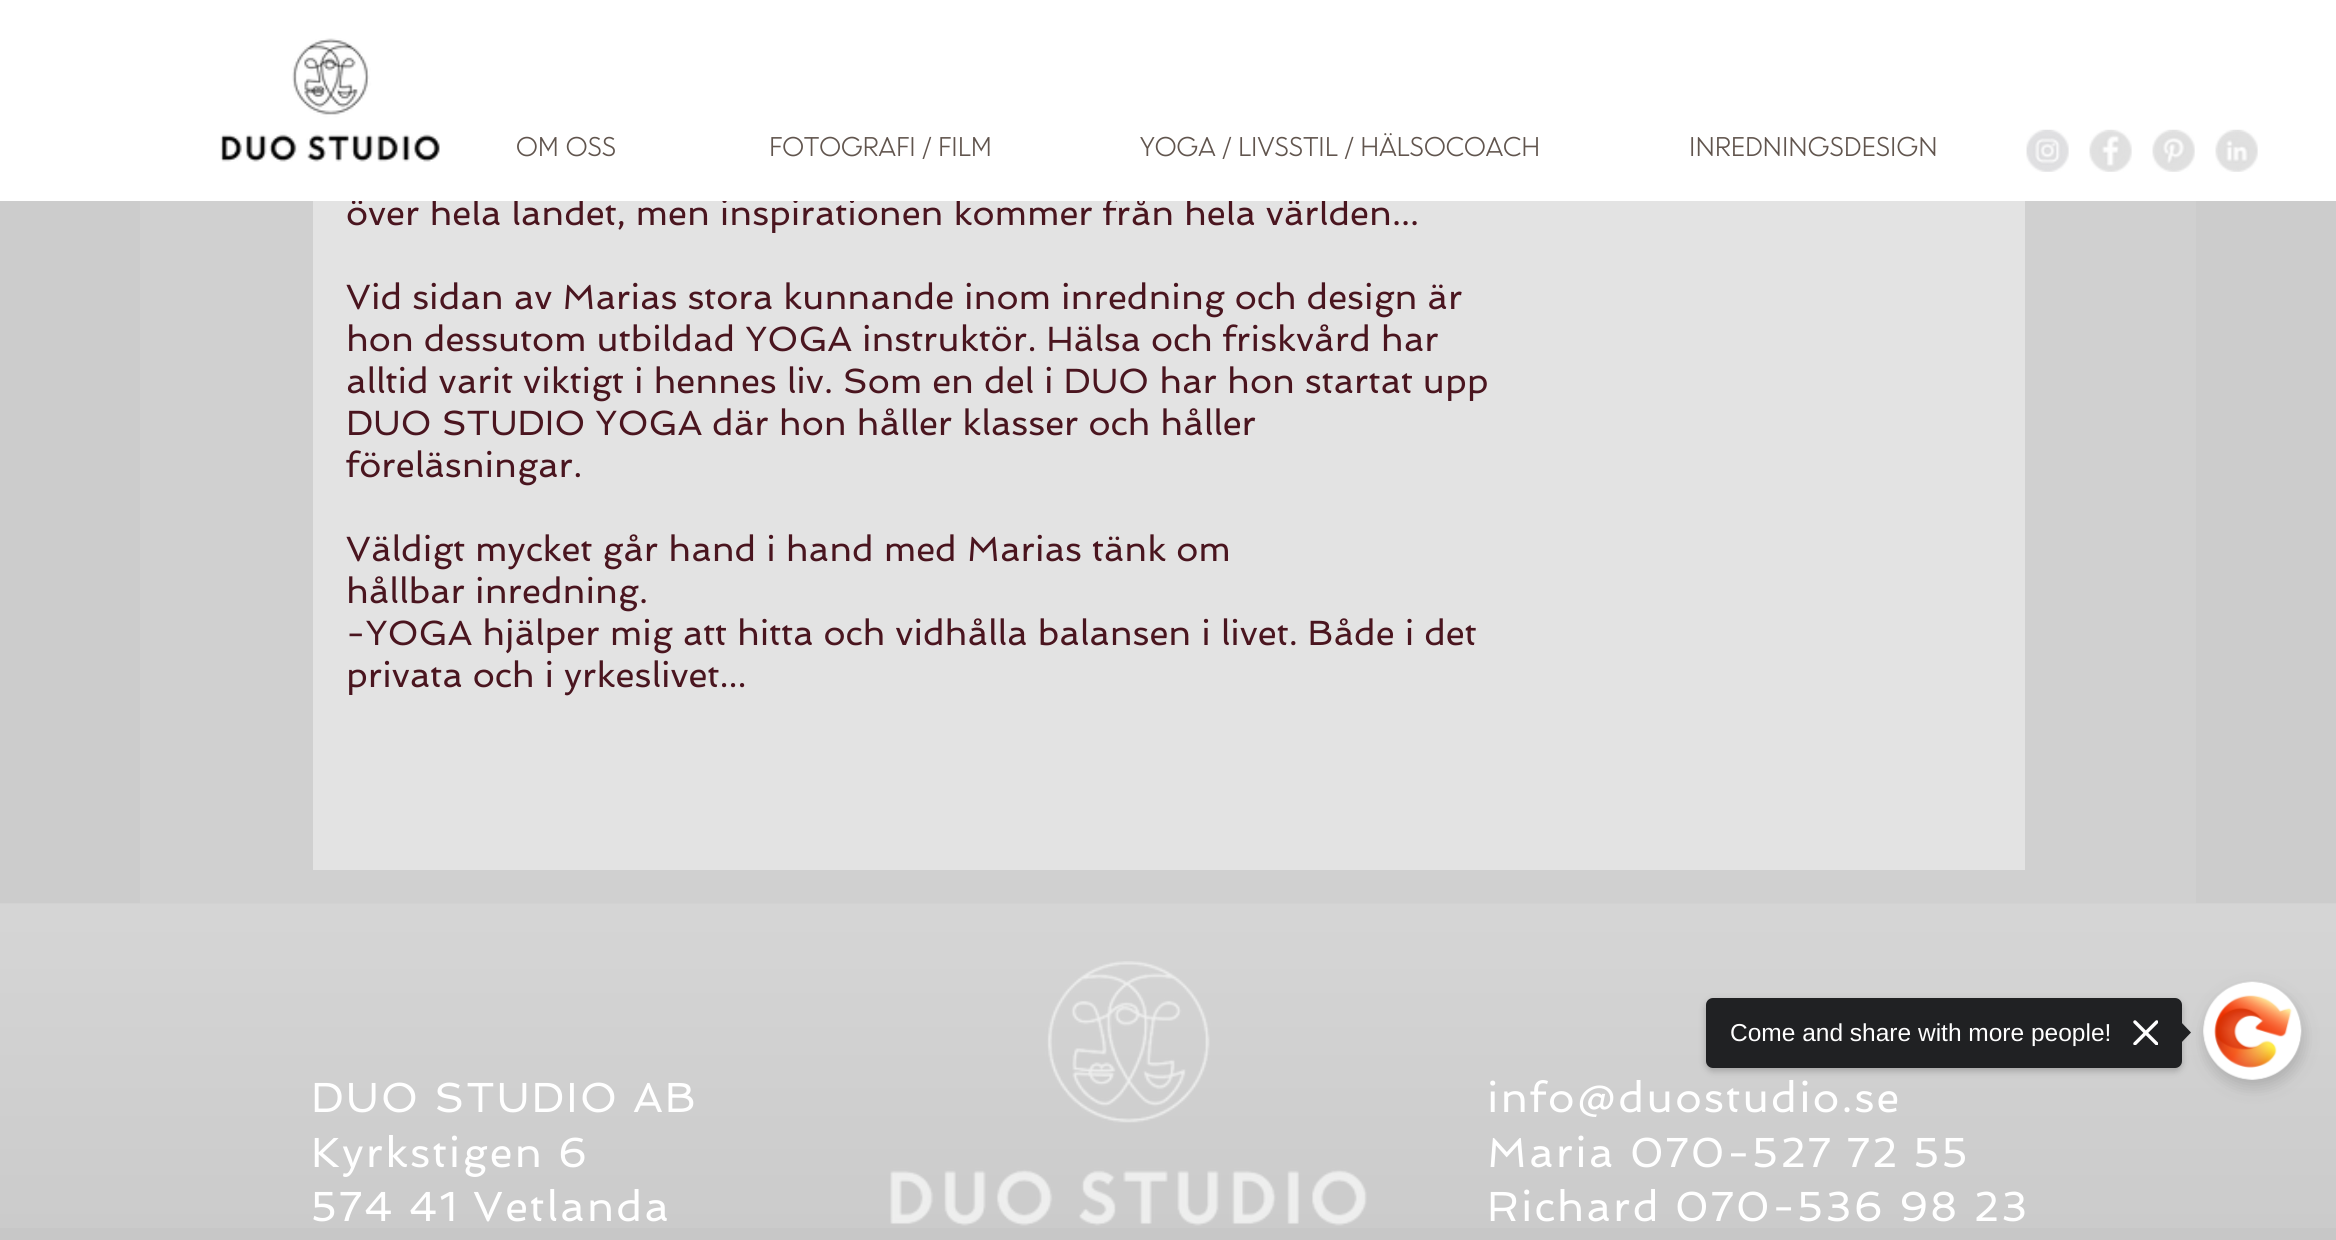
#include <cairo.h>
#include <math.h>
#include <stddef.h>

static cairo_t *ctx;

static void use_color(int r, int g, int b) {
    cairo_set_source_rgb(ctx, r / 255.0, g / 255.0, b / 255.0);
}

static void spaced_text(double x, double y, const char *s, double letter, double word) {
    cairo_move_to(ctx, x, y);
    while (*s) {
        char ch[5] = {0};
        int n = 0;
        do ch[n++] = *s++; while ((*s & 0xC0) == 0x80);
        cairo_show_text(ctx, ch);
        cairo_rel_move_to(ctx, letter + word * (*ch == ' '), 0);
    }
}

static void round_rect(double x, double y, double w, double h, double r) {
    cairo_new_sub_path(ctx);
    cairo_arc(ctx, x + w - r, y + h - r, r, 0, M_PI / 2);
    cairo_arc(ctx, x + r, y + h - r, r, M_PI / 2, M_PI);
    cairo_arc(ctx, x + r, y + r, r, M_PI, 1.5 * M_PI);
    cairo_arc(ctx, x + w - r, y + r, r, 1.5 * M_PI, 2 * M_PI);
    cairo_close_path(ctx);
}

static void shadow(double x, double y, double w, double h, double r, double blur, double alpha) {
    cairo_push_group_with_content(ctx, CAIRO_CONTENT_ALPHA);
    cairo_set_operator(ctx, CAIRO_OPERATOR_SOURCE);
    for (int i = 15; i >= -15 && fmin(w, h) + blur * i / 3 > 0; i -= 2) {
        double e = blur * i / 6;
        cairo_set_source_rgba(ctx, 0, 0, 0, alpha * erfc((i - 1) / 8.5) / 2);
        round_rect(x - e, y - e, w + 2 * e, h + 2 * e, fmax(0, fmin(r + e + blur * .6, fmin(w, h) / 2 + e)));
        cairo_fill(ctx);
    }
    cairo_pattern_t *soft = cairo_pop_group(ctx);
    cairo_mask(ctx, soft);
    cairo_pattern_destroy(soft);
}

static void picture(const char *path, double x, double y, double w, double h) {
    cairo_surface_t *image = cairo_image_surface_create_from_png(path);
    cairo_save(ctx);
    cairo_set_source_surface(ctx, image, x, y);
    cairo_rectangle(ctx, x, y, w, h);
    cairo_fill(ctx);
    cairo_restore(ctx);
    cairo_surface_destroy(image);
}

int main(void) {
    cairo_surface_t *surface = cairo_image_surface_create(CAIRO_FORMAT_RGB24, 2336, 1240);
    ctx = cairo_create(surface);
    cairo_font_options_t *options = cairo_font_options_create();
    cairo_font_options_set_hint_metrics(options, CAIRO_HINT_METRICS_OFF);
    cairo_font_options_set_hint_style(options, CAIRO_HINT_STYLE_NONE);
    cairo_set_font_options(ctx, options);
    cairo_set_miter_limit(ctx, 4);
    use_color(204, 204, 204);
    cairo_paint(ctx);
    use_color(208, 208, 208);
    cairo_rectangle(ctx, 140, 201, 2056, 702);
    cairo_fill(ctx);
    use_color(227, 227, 227);
    cairo_rectangle(ctx, 313, 201, 1712, 669);
    cairo_fill(ctx);
    cairo_select_font_face(ctx, "Spinnaker", CAIRO_FONT_SLANT_NORMAL, CAIRO_FONT_WEIGHT_NORMAL);
    cairo_set_font_size(ctx, 35);
    use_color(74, 21, 31);
    cairo_move_to(ctx, 346, 225);
    cairo_show_text(ctx, "över hela landet, men inspirationen kommer från hela världen...");
    use_color(255, 255, 255);
    cairo_rectangle(ctx, 0, 0, 2336, 201);
    cairo_fill(ctx);
    picture("img1.png", 220, 38, 220, 124);
    cairo_select_font_face(ctx, "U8 Light", CAIRO_FONT_SLANT_NORMAL, CAIRO_FONT_WEIGHT_NORMAL);
    cairo_set_font_size(ctx, 24.5);
    use_color(97, 85, 78);
    cairo_move_to(ctx, 516, 156);
    cairo_show_text(ctx, "OM OSS");
    cairo_move_to(ctx, 769, 156);
    cairo_show_text(ctx, "FOTOGRAFI / FILM");
    cairo_move_to(ctx, 1140, 156);
    cairo_show_text(ctx, "YOGA / LIVSSTIL / HÄLSOCOACH");
    cairo_move_to(ctx, 1689, 156);
    cairo_show_text(ctx, "INREDNINGSDESIGN");
    picture("img2.png", 2026, 129, 43, 43);
    picture("img3.png", 2089, 129, 43, 43);
    picture("img4.png", 2152, 129, 43, 43);
    picture("img5.png", 2215, 129, 43, 43);
    cairo_select_font_face(ctx, "Spinnaker", CAIRO_FONT_SLANT_NORMAL, CAIRO_FONT_WEIGHT_NORMAL);
    cairo_set_font_size(ctx, 35);
    use_color(74, 21, 31);
    cairo_move_to(ctx, 346, 309);
    cairo_show_text(ctx, "Vid sidan av Marias stora kunnande inom inredning och design är");
    cairo_move_to(ctx, 346, 351);
    cairo_show_text(ctx, "hon dessutom utbildad YOGA instruktör. Hälsa och friskvård har");
    cairo_move_to(ctx, 346, 393);
    cairo_show_text(ctx, "alltid varit viktigt i hennes liv. Som en del i DUO har hon startat upp");
    cairo_move_to(ctx, 346, 435);
    cairo_show_text(ctx, "DUO STUDIO YOGA där hon håller klasser och håller");
    cairo_move_to(ctx, 346, 477);
    cairo_show_text(ctx, "föreläsningar.");
    cairo_move_to(ctx, 346, 561);
    cairo_show_text(ctx, "Väldigt mycket går hand i hand med Marias tänk om");
    cairo_move_to(ctx, 346, 603);
    cairo_show_text(ctx, "hållbar inredning.");
    cairo_move_to(ctx, 346, 645);
    cairo_show_text(ctx, "-YOGA hjälper mig att hitta och vidhålla balansen i livet. Både i det");
    cairo_move_to(ctx, 346, 687);
    cairo_show_text(ctx, "privata och i yrkeslivet...");
    use_color(199, 199, 199);
    cairo_rectangle(ctx, 0, 903, 2336, 337);
    cairo_fill(ctx);
    picture("img6.png", 0, 903, 2336, 325);
    cairo_set_font_size(ctx, 42);
    use_color(255, 255, 255);
    spaced_text(311, 1112, "DUO STUDIO AB", 2.1, 0);
    spaced_text(311, 1167, "Kyrkstigen 6", 2.1, 0);
    spaced_text(311, 1221, "574 41 Vetlanda", 2.1, 0);
    picture("img7.png", 890, 961, 477, 265);
    spaced_text(1487, 1112, "info@duostudio.se", 2.1, 0);
    spaced_text(1487, 1167, "Maria 070-527 72 55", 2.1, 0);
    spaced_text(1487, 1221, "Richard 070-536 98 23", 2.1, 0);
    use_color(0, 0, 0);
    shadow(2205, 989, 98, 98, 49, 8, 0.17);
    shadow(1706, 1001, 476, 70, 7, 3.5, 0.22);
    use_color(32, 33, 35);
    round_rect(1706, 998, 476, 70, 7);
    cairo_fill(ctx);
    cairo_select_font_face(ctx, "Liberation Sans", CAIRO_FONT_SLANT_NORMAL, CAIRO_FONT_WEIGHT_NORMAL);
    cairo_set_font_size(ctx, 24.5);
    use_color(255, 255, 255);
    cairo_move_to(ctx, 1730, 1041);
    cairo_show_text(ctx, "Come and share with more people!");
    picture("img8.png", 2133, 1020, 25, 25);
    use_color(32, 33, 35);
    cairo_new_path(ctx);
    cairo_move_to(ctx, 2179, 1045);
    cairo_line_to(ctx, 2179, 1020);
    cairo_line_to(ctx, 2191, 1032.5);
    cairo_close_path(ctx);
    cairo_fill(ctx);
    picture("img9.png", 2203, 981, 99, 99);
    cairo_surface_write_to_png(surface, "result.png");
    cairo_font_options_destroy(options);
    cairo_destroy(ctx);
    cairo_surface_destroy(surface);
    return 0;
}
